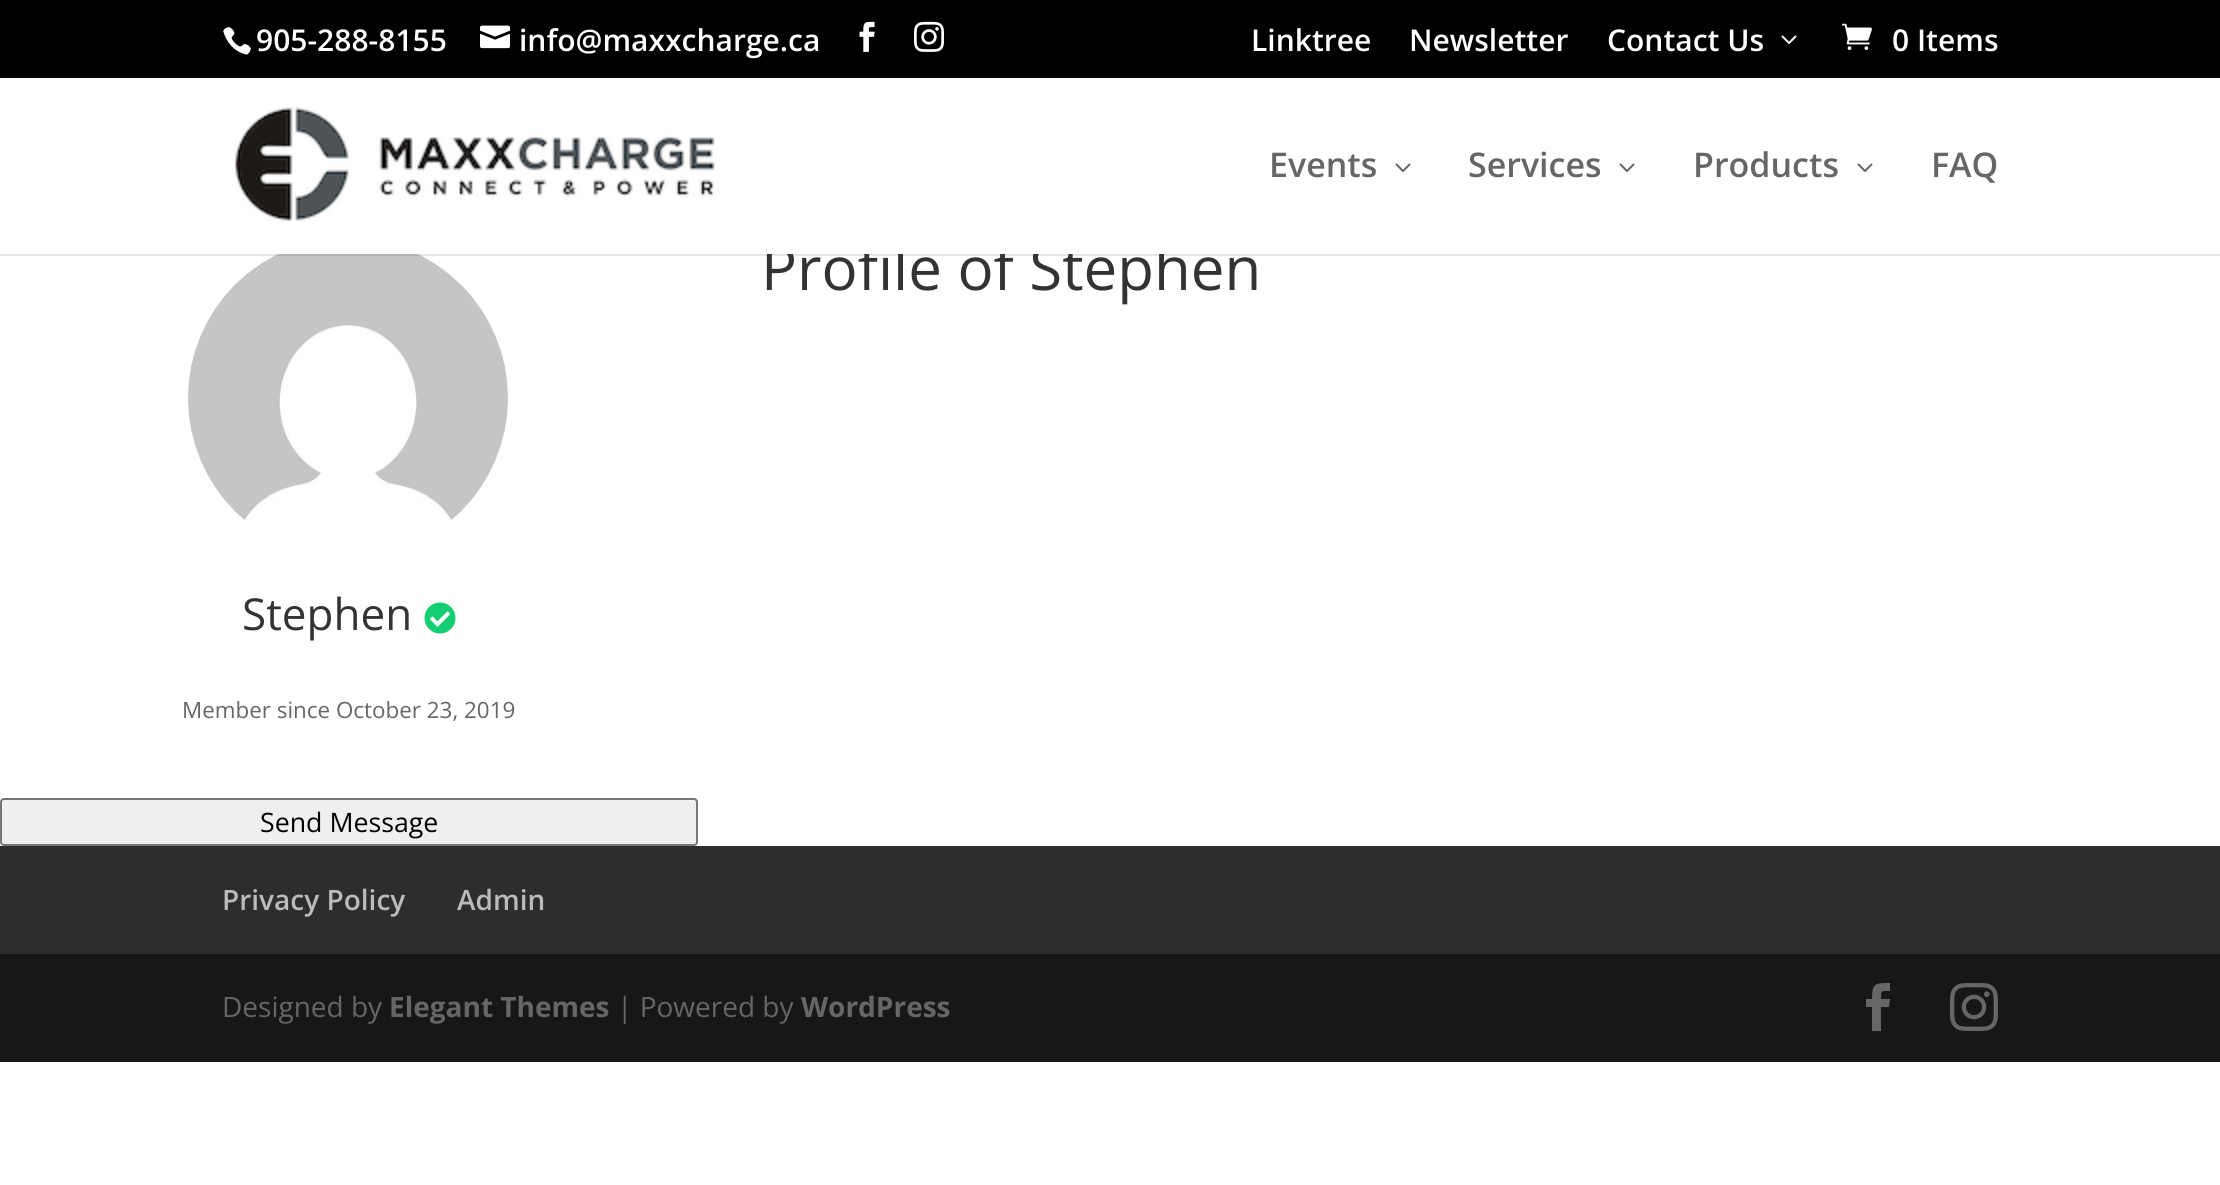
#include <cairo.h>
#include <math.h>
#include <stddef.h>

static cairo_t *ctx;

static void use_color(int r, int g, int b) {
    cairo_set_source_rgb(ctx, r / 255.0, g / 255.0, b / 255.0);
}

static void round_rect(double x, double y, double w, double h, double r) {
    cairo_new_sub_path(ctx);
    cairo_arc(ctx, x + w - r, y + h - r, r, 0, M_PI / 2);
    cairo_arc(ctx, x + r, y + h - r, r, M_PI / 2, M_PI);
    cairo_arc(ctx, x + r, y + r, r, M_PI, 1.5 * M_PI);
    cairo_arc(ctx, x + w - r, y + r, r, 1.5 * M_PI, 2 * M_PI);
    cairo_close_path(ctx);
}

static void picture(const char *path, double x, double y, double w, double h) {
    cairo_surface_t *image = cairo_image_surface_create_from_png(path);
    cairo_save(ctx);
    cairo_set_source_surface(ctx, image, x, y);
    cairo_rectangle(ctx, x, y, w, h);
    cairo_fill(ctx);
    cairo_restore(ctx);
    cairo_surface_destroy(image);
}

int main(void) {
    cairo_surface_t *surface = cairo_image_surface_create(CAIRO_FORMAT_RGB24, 2220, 1185);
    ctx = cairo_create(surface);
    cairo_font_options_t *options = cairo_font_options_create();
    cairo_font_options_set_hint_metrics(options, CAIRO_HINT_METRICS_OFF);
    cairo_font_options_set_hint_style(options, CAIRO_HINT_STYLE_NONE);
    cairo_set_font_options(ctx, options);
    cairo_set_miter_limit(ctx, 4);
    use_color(255, 255, 255);
    cairo_paint(ctx);
    use_color(0, 0, 0);
    cairo_rectangle(ctx, 0, 0, 2220, 78);
    cairo_fill(ctx);
    picture("img1.png", 223, 27, 28, 28);
    cairo_select_font_face(ctx, "Open Sans SemiBold", CAIRO_FONT_SLANT_NORMAL, CAIRO_FONT_WEIGHT_NORMAL);
    cairo_set_font_size(ctx, 30);
    use_color(255, 255, 255);
    cairo_move_to(ctx, 256, 51);
    cairo_show_text(ctx, "905-288-8155");
    picture("img2.png", 480, 25, 30, 24);
    cairo_move_to(ctx, 519, 51);
    cairo_show_text(ctx, "info@maxxcharge.ca");
    picture("img3.png", 859, 21, 16, 31);
    picture("img4.png", 914, 21, 30, 31);
    cairo_move_to(ctx, 1251, 51);
    cairo_show_text(ctx, "Linktree");
    cairo_move_to(ctx, 1409, 51);
    cairo_show_text(ctx, "Newsletter");
    cairo_move_to(ctx, 1607, 51);
    cairo_show_text(ctx, "Contact Us");
    picture("img5.png", 1781, 35, 16, 9);
    picture("img6.png", 1842, 23, 30, 27);
    cairo_move_to(ctx, 1892, 51);
    cairo_show_text(ctx, "0 Items");
    picture("img9.png", 188, 254, 320, 267);
    cairo_set_source_rgba(ctx, 0, 0, 0, 0.1);
    cairo_rectangle(ctx, 0, 254, 2220, 2);
    cairo_fill(ctx);
    cairo_select_font_face(ctx, "Open Sans", CAIRO_FONT_SLANT_NORMAL, CAIRO_FONT_WEIGHT_NORMAL);
    cairo_set_font_size(ctx, 60);
    use_color(51, 51, 51);
    cairo_move_to(ctx, 761, 290);
    cairo_show_text(ctx, "Profile of Stephen");
    use_color(255, 255, 255);
    cairo_rectangle(ctx, 767, 244, 398, 10);
    cairo_fill(ctx);
    picture("img7.png", 234, 107, 481, 115);
    cairo_select_font_face(ctx, "Open Sans SemiBold", CAIRO_FONT_SLANT_NORMAL, CAIRO_FONT_WEIGHT_NORMAL);
    cairo_set_font_size(ctx, 34);
    use_color(102, 102, 102);
    cairo_move_to(ctx, 1269, 177);
    cairo_show_text(ctx, "Events");
    picture("img8.png", 1395, 163, 16, 9);
    cairo_move_to(ctx, 1468, 177);
    cairo_show_text(ctx, "Services");
    picture("img8.png", 1619, 163, 16, 9);
    cairo_move_to(ctx, 1693, 177);
    cairo_show_text(ctx, "Products");
    picture("img8.png", 1857, 163, 16, 9);
    cairo_move_to(ctx, 1931, 177);
    cairo_show_text(ctx, "FAQ");
    cairo_select_font_face(ctx, "Open Sans", CAIRO_FONT_SLANT_NORMAL, CAIRO_FONT_WEIGHT_NORMAL);
    cairo_set_font_size(ctx, 44);
    use_color(51, 51, 51);
    cairo_move_to(ctx, 242, 630);
    cairo_show_text(ctx, "Stephen");
    picture("img10.png", 424, 602, 32, 32);
    cairo_set_font_size(ctx, 22.4);
    use_color(102, 102, 102);
    cairo_move_to(ctx, 182, 718);
    cairo_show_text(ctx, "Member since October 23, 2019");
    use_color(239, 239, 239);
    round_rect(1, 799, 696, 46, 3);
    cairo_fill_preserve(ctx);
    use_color(118, 118, 118);
    cairo_stroke(ctx);
    cairo_set_font_size(ctx, 26.75);
    use_color(0, 0, 0);
    cairo_move_to(ctx, 260, 832);
    cairo_show_text(ctx, "Send Message");
    use_color(45, 45, 45);
    cairo_rectangle(ctx, 0, 846, 2220, 108);
    cairo_fill(ctx);
    cairo_select_font_face(ctx, "Open Sans SemiBold", CAIRO_FONT_SLANT_NORMAL, CAIRO_FONT_WEIGHT_NORMAL);
    cairo_set_font_size(ctx, 28);
    use_color(187, 187, 187);
    cairo_move_to(ctx, 222, 910);
    cairo_show_text(ctx, "Privacy Policy");
    cairo_move_to(ctx, 457, 910);
    cairo_show_text(ctx, "Admin");
    use_color(23, 23, 23);
    cairo_rectangle(ctx, 0, 954, 2220, 108);
    cairo_fill(ctx);
    cairo_select_font_face(ctx, "Open Sans", CAIRO_FONT_SLANT_NORMAL, CAIRO_FONT_WEIGHT_NORMAL);
    use_color(102, 102, 102);
    cairo_move_to(ctx, 222, 1017);
    cairo_show_text(ctx, "Designed by");
    cairo_select_font_face(ctx, "Open Sans", CAIRO_FONT_SLANT_NORMAL, CAIRO_FONT_WEIGHT_BOLD);
    cairo_move_to(ctx, 389, 1017);
    cairo_show_text(ctx, "Elegant Themes");
    cairo_select_font_face(ctx, "Open Sans", CAIRO_FONT_SLANT_NORMAL, CAIRO_FONT_WEIGHT_NORMAL);
    cairo_move_to(ctx, 617, 1017);
    cairo_show_text(ctx, "| Powered by");
    cairo_select_font_face(ctx, "Open Sans", CAIRO_FONT_SLANT_NORMAL, CAIRO_FONT_WEIGHT_BOLD);
    cairo_move_to(ctx, 801, 1017);
    cairo_show_text(ctx, "WordPress");
    cairo_new_path(ctx);
    cairo_move_to(ctx, 1872, 1031);
    cairo_line_to(ctx, 1881, 1031);
    cairo_line_to(ctx, 1881, 1007);
    cairo_line_to(ctx, 1889, 1007);
    cairo_line_to(ctx, 1890, 999);
    cairo_line_to(ctx, 1881, 999);
    cairo_curve_to(ctx, 1881, 990, 1881, 991, 1890, 991);
    cairo_line_to(ctx, 1890, 983);
    cairo_curve_to(ctx, 1875, 983, 1872, 983, 1872, 999);
    cairo_line_to(ctx, 1866, 999);
    cairo_line_to(ctx, 1866, 1007);
    cairo_line_to(ctx, 1872, 1007);
    cairo_close_path(ctx);
    cairo_fill(ctx);
    picture("img11.png", 1950, 983, 48, 48);
    cairo_surface_write_to_png(surface, "result.png");
    cairo_font_options_destroy(options);
    cairo_destroy(ctx);
    cairo_surface_destroy(surface);
    return 0;
}
